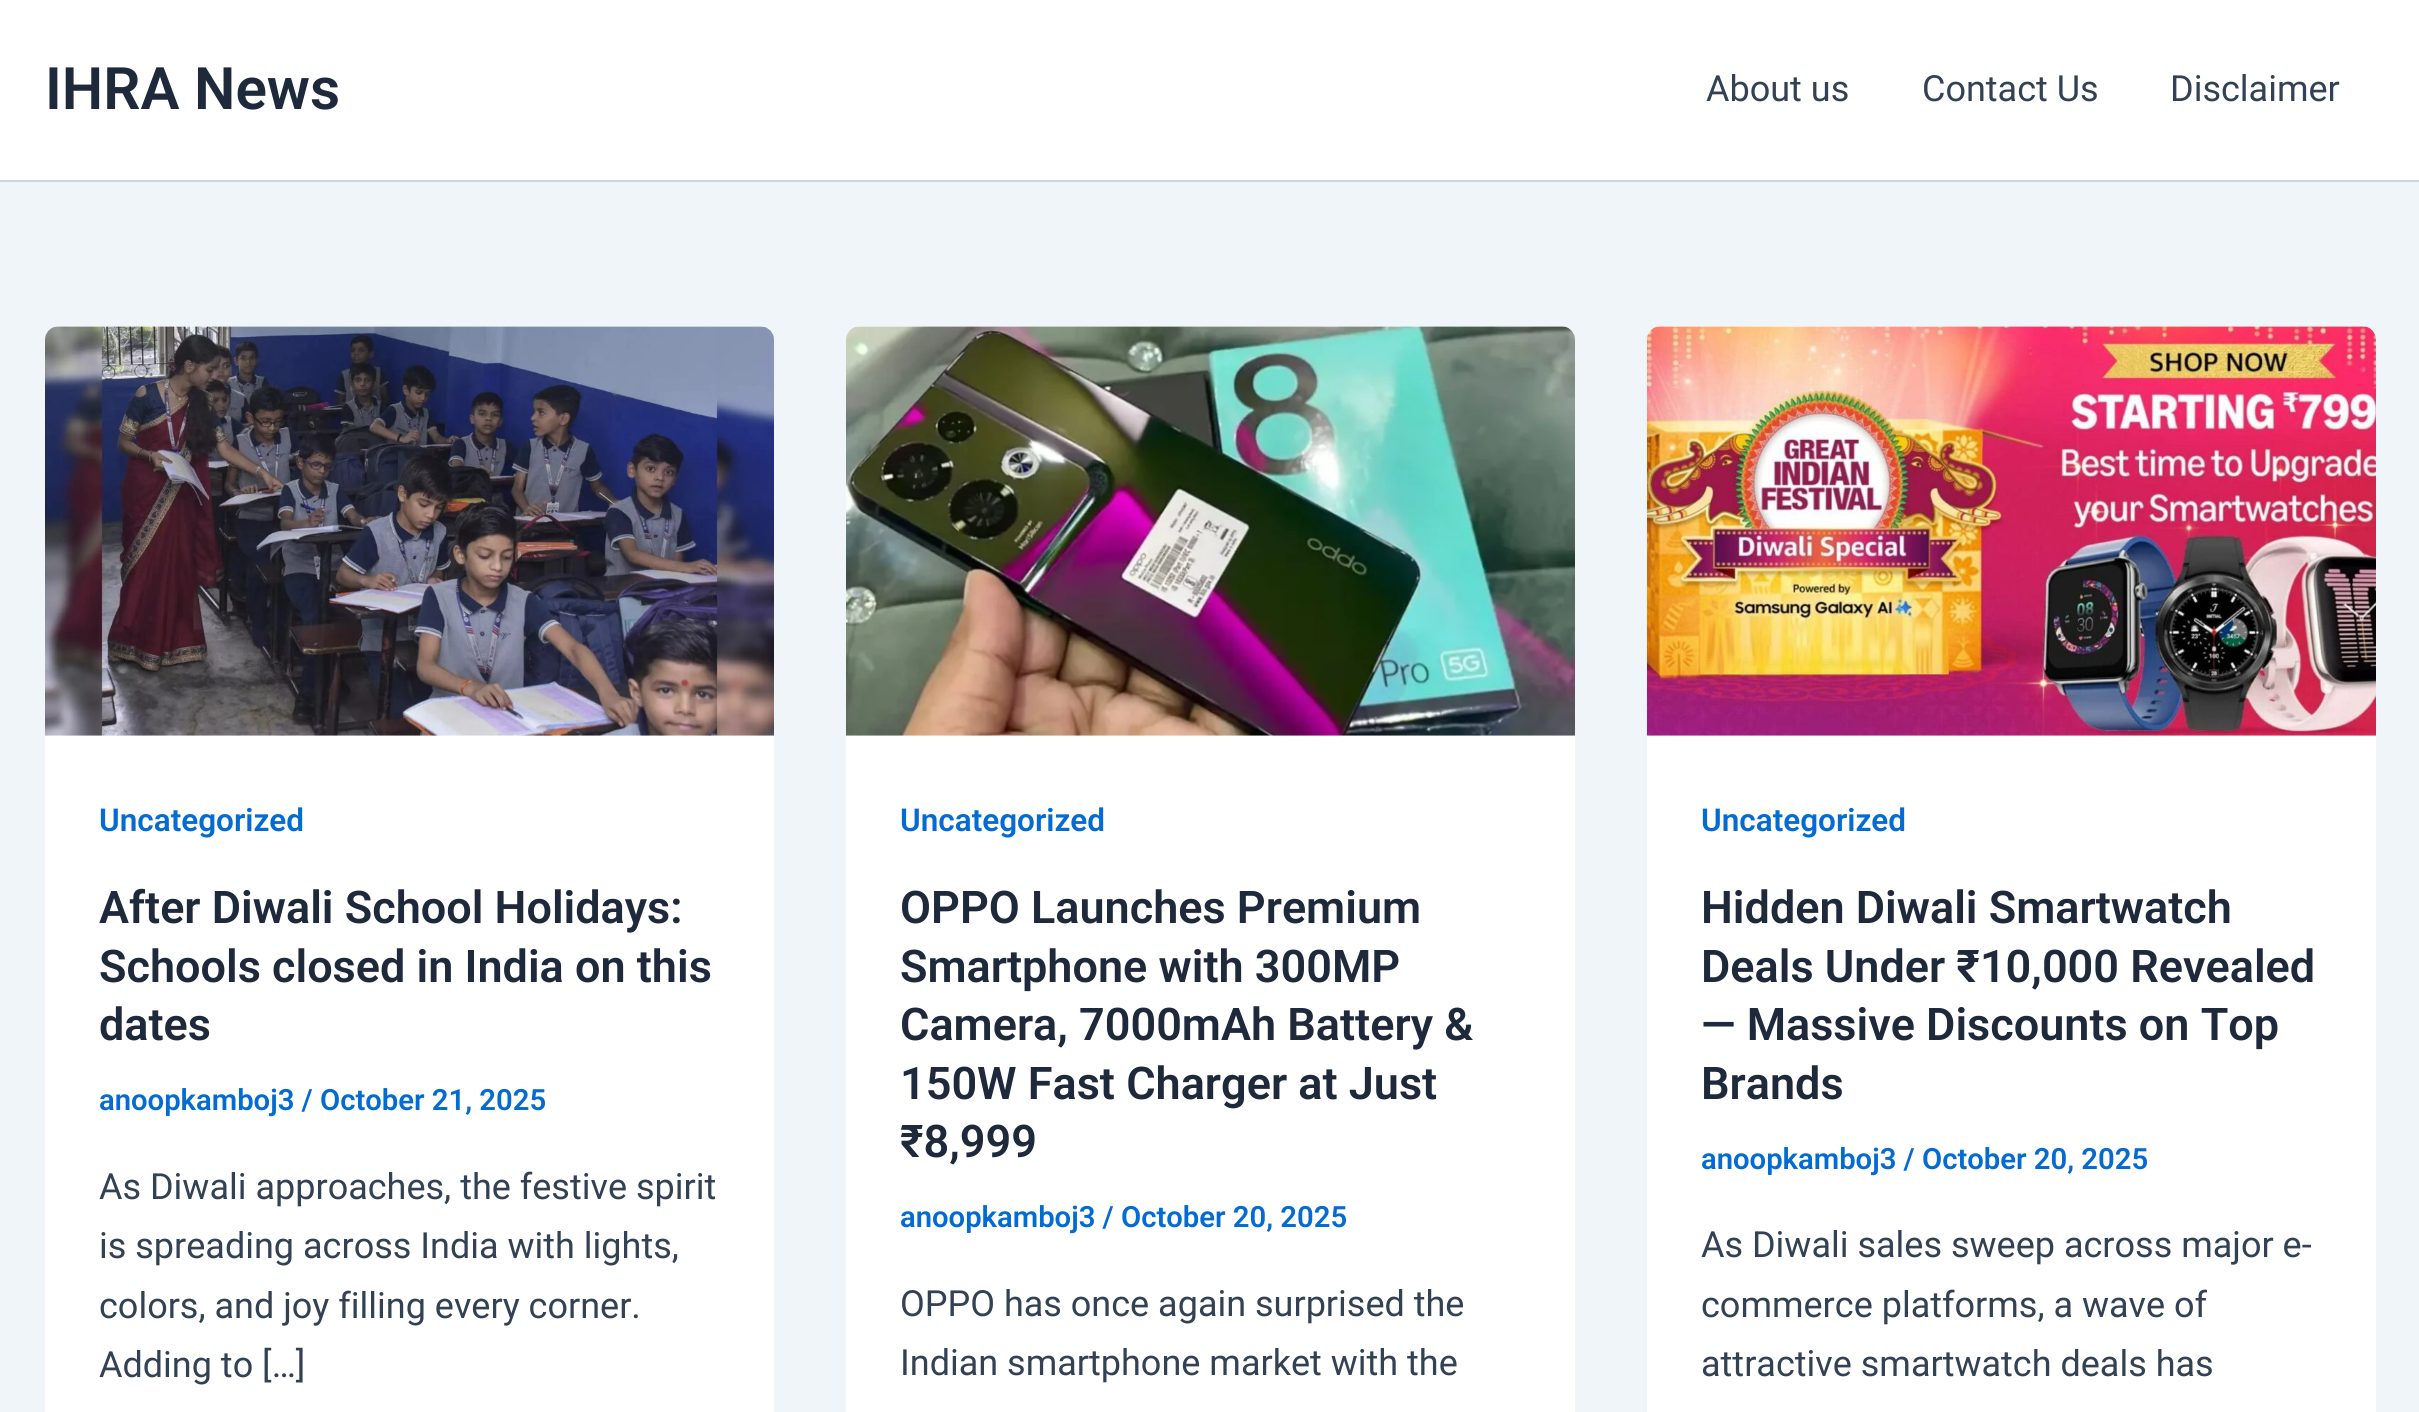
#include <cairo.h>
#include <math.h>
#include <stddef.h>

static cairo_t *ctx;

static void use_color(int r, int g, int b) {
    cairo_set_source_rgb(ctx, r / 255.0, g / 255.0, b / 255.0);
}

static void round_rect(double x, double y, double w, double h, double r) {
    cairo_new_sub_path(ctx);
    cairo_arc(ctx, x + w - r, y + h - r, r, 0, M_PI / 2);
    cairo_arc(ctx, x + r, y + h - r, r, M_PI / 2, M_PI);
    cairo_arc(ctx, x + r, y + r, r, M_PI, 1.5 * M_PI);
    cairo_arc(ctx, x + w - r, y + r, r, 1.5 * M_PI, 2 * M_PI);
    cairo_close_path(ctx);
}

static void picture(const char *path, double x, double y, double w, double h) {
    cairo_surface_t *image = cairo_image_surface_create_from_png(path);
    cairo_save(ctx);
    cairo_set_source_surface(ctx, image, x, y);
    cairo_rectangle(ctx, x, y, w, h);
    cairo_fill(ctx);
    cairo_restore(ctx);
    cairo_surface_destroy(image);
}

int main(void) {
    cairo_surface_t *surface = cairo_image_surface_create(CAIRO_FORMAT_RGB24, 2419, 1412);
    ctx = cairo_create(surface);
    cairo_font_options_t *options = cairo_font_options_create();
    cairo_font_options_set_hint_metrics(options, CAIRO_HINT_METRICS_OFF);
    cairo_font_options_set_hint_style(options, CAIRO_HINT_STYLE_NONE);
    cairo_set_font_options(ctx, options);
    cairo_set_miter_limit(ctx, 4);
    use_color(240, 245, 250);
    cairo_paint(ctx);
    use_color(255, 255, 255);
    cairo_rectangle(ctx, 0, 0, 2419, 180);
    cairo_fill(ctx);
    use_color(209, 213, 219);
    cairo_rectangle(ctx, 0, 180, 2419, 2);
    cairo_fill(ctx);
    cairo_select_font_face(ctx, "Roboto SemiBold", CAIRO_FONT_SLANT_NORMAL, CAIRO_FONT_WEIGHT_NORMAL);
    cairo_set_font_size(ctx, 58.5);
    use_color(30, 41, 59);
    cairo_move_to(ctx, 45, 109);
    cairo_show_text(ctx, "IHRA News");
    cairo_select_font_face(ctx, "Roboto", CAIRO_FONT_SLANT_NORMAL, CAIRO_FONT_WEIGHT_NORMAL);
    cairo_set_font_size(ctx, 36);
    use_color(51, 65, 85);
    cairo_move_to(ctx, 1706, 101);
    cairo_show_text(ctx, "About us");
    cairo_move_to(ctx, 1922, 101);
    cairo_show_text(ctx, "Contact Us");
    cairo_move_to(ctx, 2170, 101);
    cairo_show_text(ctx, "Disclaimer");
    use_color(255, 255, 255);
    round_rect(45, 326, 729, 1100, 14);
    cairo_fill(ctx);
    picture("img1.png", 45, 326, 729, 410);
    cairo_select_font_face(ctx, "Roboto SemiBold", CAIRO_FONT_SLANT_NORMAL, CAIRO_FONT_WEIGHT_NORMAL);
    cairo_set_font_size(ctx, 31.5);
    use_color(4, 107, 210);
    cairo_move_to(ctx, 99, 831);
    cairo_show_text(ctx, "Uncategorized");
    cairo_set_font_size(ctx, 45);
    use_color(30, 41, 59);
    cairo_move_to(ctx, 99, 923);
    cairo_show_text(ctx, "After Diwali School Holidays:");
    cairo_move_to(ctx, 99, 982);
    cairo_show_text(ctx, "Schools closed in India on this");
    cairo_move_to(ctx, 99, 1040);
    cairo_show_text(ctx, "dates");
    cairo_set_font_size(ctx, 29.25);
    use_color(4, 107, 210);
    cairo_move_to(ctx, 99, 1110);
    cairo_show_text(ctx, "anoopkamboj3 / October 21, 2025");
    cairo_select_font_face(ctx, "Roboto", CAIRO_FONT_SLANT_NORMAL, CAIRO_FONT_WEIGHT_NORMAL);
    cairo_set_font_size(ctx, 36);
    use_color(51, 65, 85);
    cairo_move_to(ctx, 99, 1199);
    cairo_show_text(ctx, "As Diwali approaches, the festive spirit");
    cairo_move_to(ctx, 99, 1258);
    cairo_show_text(ctx, "is spreading across India with lights,");
    cairo_move_to(ctx, 99, 1318);
    cairo_show_text(ctx, "colors, and joy filling every corner.");
    cairo_move_to(ctx, 99, 1377);
    cairo_show_text(ctx, "Adding to […]");
    use_color(255, 255, 255);
    round_rect(846, 326, 729, 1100, 14);
    cairo_fill(ctx);
    picture("img2.png", 846, 326, 729, 410);
    cairo_select_font_face(ctx, "Roboto SemiBold", CAIRO_FONT_SLANT_NORMAL, CAIRO_FONT_WEIGHT_NORMAL);
    cairo_set_font_size(ctx, 31.5);
    use_color(4, 107, 210);
    cairo_move_to(ctx, 900, 831);
    cairo_show_text(ctx, "Uncategorized");
    cairo_set_font_size(ctx, 45);
    use_color(30, 41, 59);
    cairo_move_to(ctx, 900, 923);
    cairo_show_text(ctx, "OPPO Launches Premium");
    cairo_move_to(ctx, 900, 982);
    cairo_show_text(ctx, "Smartphone with 300MP");
    cairo_move_to(ctx, 900, 1040);
    cairo_show_text(ctx, "Camera, 7000mAh Battery &");
    cairo_move_to(ctx, 900, 1099);
    cairo_show_text(ctx, "150W Fast Charger at Just");
    cairo_move_to(ctx, 900, 1157);
    cairo_show_text(ctx, "₹8,999");
    cairo_set_font_size(ctx, 29.25);
    use_color(4, 107, 210);
    cairo_move_to(ctx, 900, 1227);
    cairo_show_text(ctx, "anoopkamboj3 / October 20, 2025");
    cairo_select_font_face(ctx, "Roboto", CAIRO_FONT_SLANT_NORMAL, CAIRO_FONT_WEIGHT_NORMAL);
    cairo_set_font_size(ctx, 36);
    use_color(51, 65, 85);
    cairo_move_to(ctx, 900, 1316);
    cairo_show_text(ctx, "OPPO has once again surprised the");
    cairo_move_to(ctx, 900, 1375);
    cairo_show_text(ctx, "Indian smartphone market with the");
    use_color(255, 255, 255);
    round_rect(1647, 326, 729, 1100, 14);
    cairo_fill(ctx);
    picture("img3.png", 1647, 326, 729, 410);
    cairo_select_font_face(ctx, "Roboto SemiBold", CAIRO_FONT_SLANT_NORMAL, CAIRO_FONT_WEIGHT_NORMAL);
    cairo_set_font_size(ctx, 31.5);
    use_color(4, 107, 210);
    cairo_move_to(ctx, 1701, 831);
    cairo_show_text(ctx, "Uncategorized");
    cairo_set_font_size(ctx, 45);
    use_color(30, 41, 59);
    cairo_move_to(ctx, 1701, 923);
    cairo_show_text(ctx, "Hidden Diwali Smartwatch");
    cairo_move_to(ctx, 1701, 982);
    cairo_show_text(ctx, "Deals Under ₹10,000 Revealed");
    cairo_move_to(ctx, 1701, 1040);
    cairo_show_text(ctx, "— Massive Discounts on Top");
    cairo_move_to(ctx, 1701, 1099);
    cairo_show_text(ctx, "Brands");
    cairo_set_font_size(ctx, 29.25);
    use_color(4, 107, 210);
    cairo_move_to(ctx, 1701, 1169);
    cairo_show_text(ctx, "anoopkamboj3 / October 20, 2025");
    cairo_select_font_face(ctx, "Roboto", CAIRO_FONT_SLANT_NORMAL, CAIRO_FONT_WEIGHT_NORMAL);
    cairo_set_font_size(ctx, 36);
    use_color(51, 65, 85);
    cairo_move_to(ctx, 1701, 1257);
    cairo_show_text(ctx, "As Diwali sales sweep across major e-");
    cairo_move_to(ctx, 1701, 1317);
    cairo_show_text(ctx, "commerce platforms, a wave of");
    cairo_move_to(ctx, 1701, 1376);
    cairo_show_text(ctx, "attractive smartwatch deals has");
    cairo_surface_write_to_png(surface, "result.png");
    cairo_font_options_destroy(options);
    cairo_destroy(ctx);
    cairo_surface_destroy(surface);
    return 0;
}
